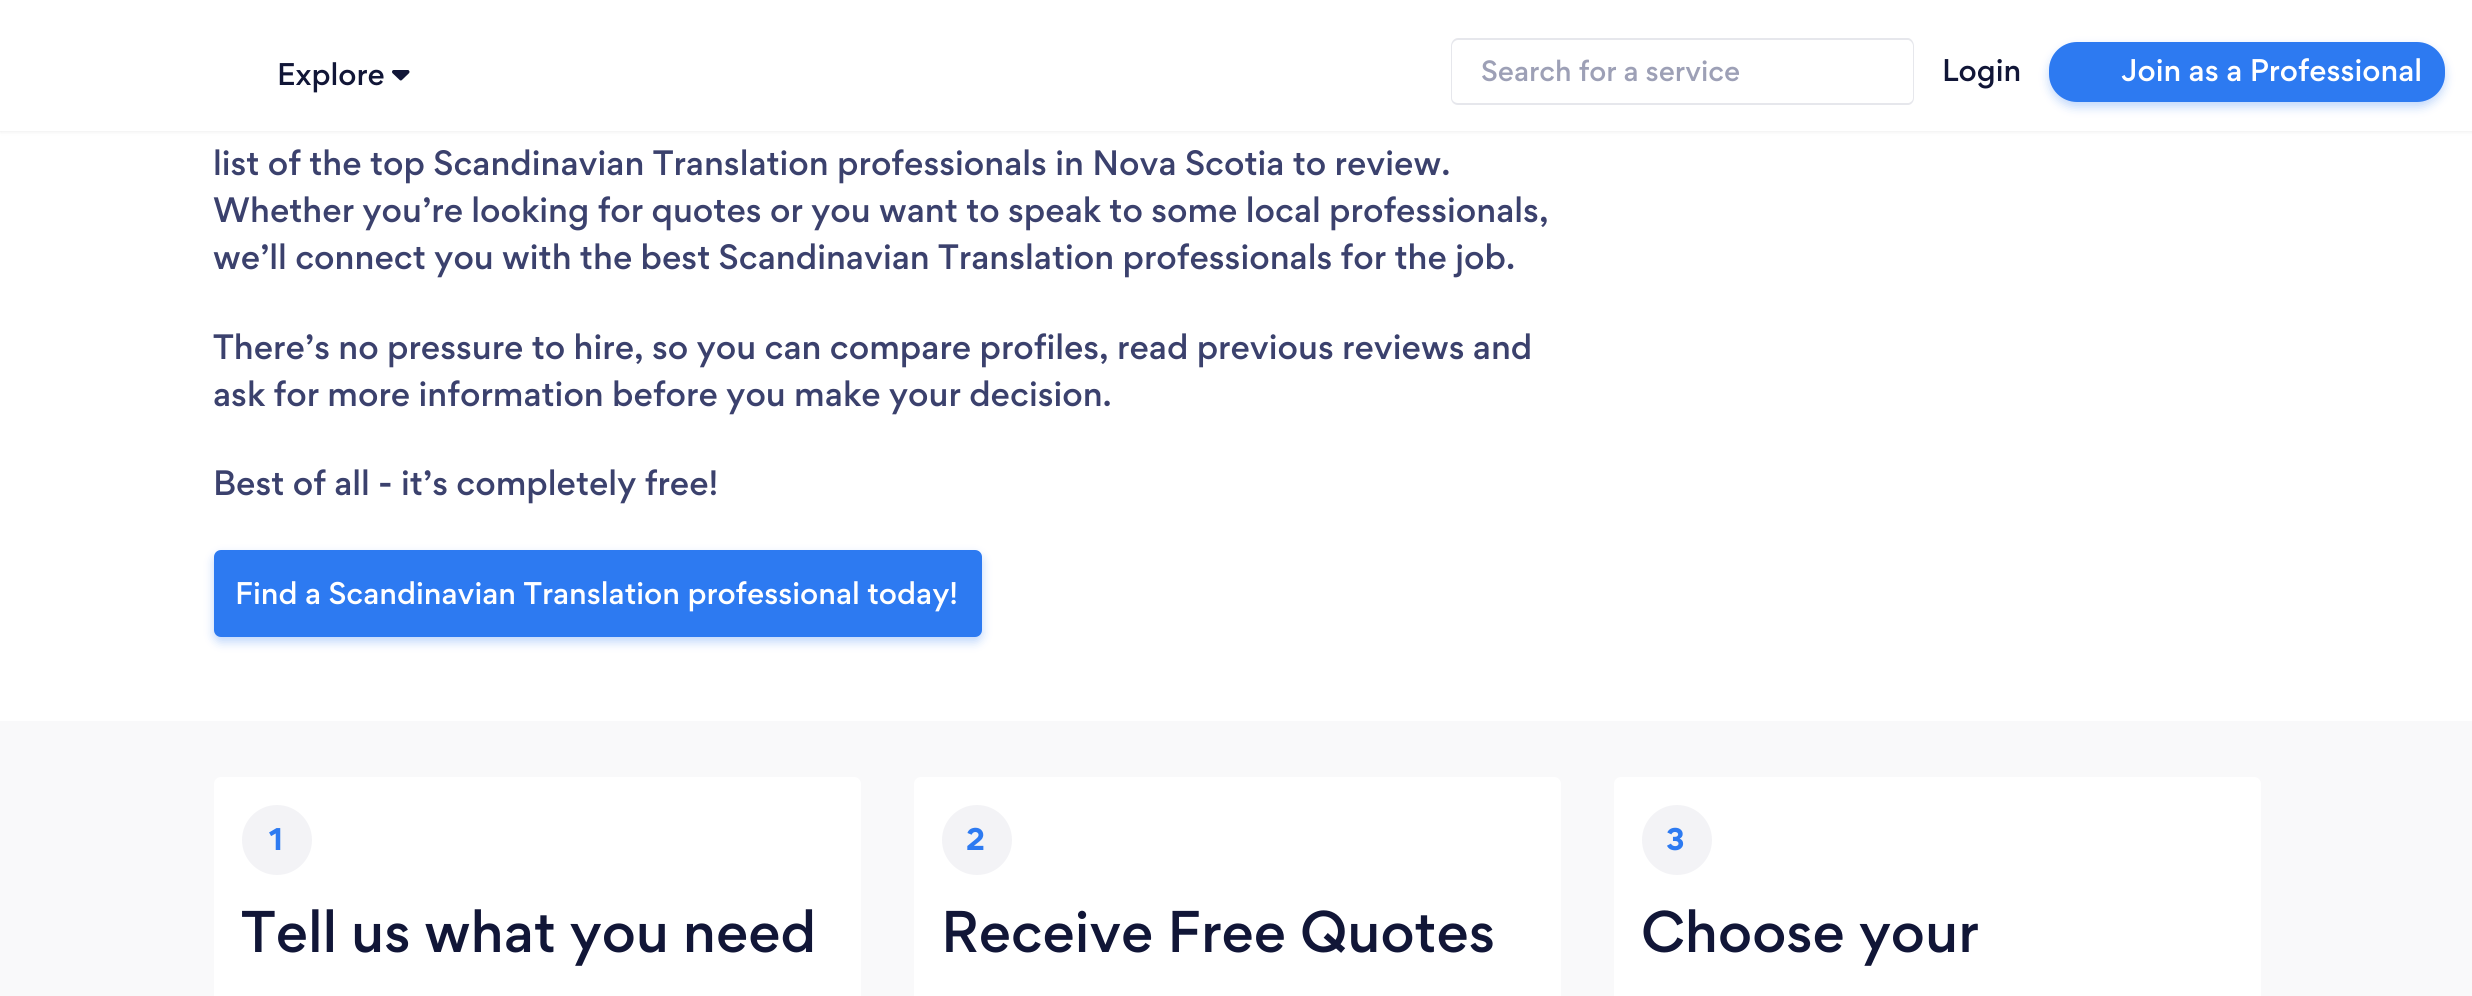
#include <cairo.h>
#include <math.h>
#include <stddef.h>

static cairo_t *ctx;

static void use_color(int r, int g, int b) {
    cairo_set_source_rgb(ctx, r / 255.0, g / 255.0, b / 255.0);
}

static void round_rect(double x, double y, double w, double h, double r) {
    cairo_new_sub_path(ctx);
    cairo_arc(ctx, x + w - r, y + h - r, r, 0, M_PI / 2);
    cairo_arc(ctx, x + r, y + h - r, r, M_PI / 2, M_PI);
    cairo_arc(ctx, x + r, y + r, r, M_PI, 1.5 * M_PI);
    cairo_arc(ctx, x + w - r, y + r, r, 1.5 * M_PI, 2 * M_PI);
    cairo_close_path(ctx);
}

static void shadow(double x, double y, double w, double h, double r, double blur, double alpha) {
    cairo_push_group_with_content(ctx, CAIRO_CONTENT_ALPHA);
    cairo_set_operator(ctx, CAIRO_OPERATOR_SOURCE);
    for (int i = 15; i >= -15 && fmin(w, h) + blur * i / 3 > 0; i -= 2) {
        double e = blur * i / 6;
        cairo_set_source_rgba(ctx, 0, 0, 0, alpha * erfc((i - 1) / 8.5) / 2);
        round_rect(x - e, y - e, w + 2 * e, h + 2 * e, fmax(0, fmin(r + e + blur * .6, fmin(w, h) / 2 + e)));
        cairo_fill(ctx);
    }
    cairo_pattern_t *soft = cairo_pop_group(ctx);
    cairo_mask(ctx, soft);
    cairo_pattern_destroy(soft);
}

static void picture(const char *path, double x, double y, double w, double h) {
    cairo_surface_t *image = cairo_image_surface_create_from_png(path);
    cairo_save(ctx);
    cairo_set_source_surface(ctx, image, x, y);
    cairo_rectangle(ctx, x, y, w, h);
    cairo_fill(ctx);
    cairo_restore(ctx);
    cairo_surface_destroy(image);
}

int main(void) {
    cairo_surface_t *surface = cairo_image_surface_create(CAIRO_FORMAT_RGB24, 2472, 996);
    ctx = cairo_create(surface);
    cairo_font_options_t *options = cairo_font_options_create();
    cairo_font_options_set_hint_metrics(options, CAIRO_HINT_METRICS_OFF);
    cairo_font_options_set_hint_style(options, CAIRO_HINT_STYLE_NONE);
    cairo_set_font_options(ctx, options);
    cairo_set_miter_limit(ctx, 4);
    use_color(255, 255, 255);
    cairo_paint(ctx);
    use_color(0, 0, 0);
    shadow(0, 0, 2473, 131, 0, 2.5, 0.1);
    use_color(255, 255, 255);
    cairo_rectangle(ctx, 0, 0, 2472, 131);
    cairo_fill(ctx);
    cairo_select_font_face(ctx, "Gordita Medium", CAIRO_FONT_SLANT_NORMAL, CAIRO_FONT_WEIGHT_NORMAL);
    cairo_set_font_size(ctx, 28);
    use_color(17, 22, 55);
    cairo_move_to(ctx, 277, 85);
    cairo_show_text(ctx, "Explore");
    picture("img1.png", 392, 70, 18, 11);
    use_color(230, 231, 236);
    cairo_set_fill_rule(ctx, CAIRO_FILL_RULE_EVEN_ODD);
    cairo_new_path(ctx);
    cairo_move_to(ctx, 1458, 38);
    cairo_line_to(ctx, 1850, 38);
    cairo_line_to(ctx, 1850, 105);
    cairo_line_to(ctx, 1458, 105);
    cairo_curve_to(ctx, 1454, 105, 1451, 102, 1451, 98);
    cairo_line_to(ctx, 1451, 46);
    cairo_curve_to(ctx, 1451, 42, 1454, 38, 1458, 38);
    cairo_close_path(ctx);
    cairo_move_to(ctx, 1458, 40);
    cairo_line_to(ctx, 1850, 40);
    cairo_line_to(ctx, 1850, 103);
    cairo_line_to(ctx, 1458, 103);
    cairo_curve_to(ctx, 1455, 103, 1452, 101, 1452, 98);
    cairo_line_to(ctx, 1452, 46);
    cairo_curve_to(ctx, 1452, 43, 1455, 40, 1458, 40);
    cairo_close_path(ctx);
    cairo_fill(ctx);
    cairo_set_font_size(ctx, 26.25);
    use_color(157, 160, 182);
    cairo_move_to(ctx, 1481, 81);
    cairo_show_text(ctx, "Search for a service");
    use_color(230, 231, 236);
    cairo_new_path(ctx);
    cairo_move_to(ctx, 1848, 38);
    cairo_line_to(ctx, 1908, 38);
    cairo_curve_to(ctx, 1911, 38, 1914, 42, 1914, 46);
    cairo_line_to(ctx, 1914, 98);
    cairo_curve_to(ctx, 1914, 102, 1911, 105, 1908, 105);
    cairo_line_to(ctx, 1848, 105);
    cairo_close_path(ctx);
    cairo_move_to(ctx, 1848, 40);
    cairo_line_to(ctx, 1908, 40);
    cairo_curve_to(ctx, 1910, 40, 1913, 43, 1913, 46);
    cairo_line_to(ctx, 1913, 98);
    cairo_curve_to(ctx, 1913, 101, 1910, 103, 1908, 103);
    cairo_line_to(ctx, 1848, 103);
    cairo_close_path(ctx);
    cairo_fill(ctx);
    cairo_set_font_size(ctx, 28);
    use_color(17, 22, 55);
    cairo_move_to(ctx, 1942, 81);
    cairo_show_text(ctx, "Login");
    use_color(45, 122, 241);
    shadow(2049, 47, 396, 60, 28, 5, 0.3);
    use_color(45, 122, 241);
    round_rect(2050, 43, 394, 58, 27);
    cairo_fill_preserve(ctx);
    cairo_stroke(ctx);
    use_color(255, 255, 255);
    cairo_move_to(ctx, 2121, 81);
    cairo_show_text(ctx, "Join as a Professional");
    cairo_set_font_size(ctx, 31.5);
    use_color(59, 65, 109);
    cairo_move_to(ctx, 213, 175);
    cairo_show_text(ctx, "list of the top Scandinavian Translation professionals in Nova Scotia to review.");
    cairo_move_to(ctx, 213, 222);
    cairo_show_text(ctx, "Whether you’re looking for quotes or you want to speak to some local professionals,");
    cairo_move_to(ctx, 213, 269);
    cairo_show_text(ctx, "we’ll connect you with the best Scandinavian Translation professionals for the job.");
    cairo_move_to(ctx, 213, 359);
    cairo_show_text(ctx, "There’s no pressure to hire, so you can compare profiles, read previous reviews and");
    cairo_move_to(ctx, 213, 406);
    cairo_show_text(ctx, "ask for more information before you make your decision.");
    cairo_move_to(ctx, 213, 495);
    cairo_show_text(ctx, "Best of all - it’s completely free!");
    use_color(45, 122, 241);
    shadow(214, 555, 768, 87, 7, 5, 0.3);
    use_color(45, 122, 241);
    round_rect(215, 551, 766, 85, 6);
    cairo_fill_preserve(ctx);
    cairo_stroke(ctx);
    cairo_set_font_size(ctx, 28);
    use_color(255, 255, 255);
    cairo_move_to(ctx, 235, 604);
    cairo_show_text(ctx, "Find a Scandinavian Translation professional today!");
    use_color(249, 249, 250);
    cairo_rectangle(ctx, 0, 721, 2472, 275);
    cairo_fill(ctx);
    use_color(255, 255, 255);
    round_rect(214, 777, 647, 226, 7);
    cairo_fill(ctx);
    use_color(243, 243, 246);
    cairo_arc(ctx, 277, 840, 35, 0, 2 * M_PI);
    cairo_fill(ctx);
    cairo_select_font_face(ctx, "Gordita", CAIRO_FONT_SLANT_NORMAL, CAIRO_FONT_WEIGHT_BOLD);
    use_color(45, 122, 241);
    cairo_move_to(ctx, 269, 850);
    cairo_show_text(ctx, "1");
    cairo_select_font_face(ctx, "Gordita Medium", CAIRO_FONT_SLANT_NORMAL, CAIRO_FONT_WEIGHT_NORMAL);
    cairo_set_font_size(ctx, 52.5);
    use_color(17, 22, 55);
    cairo_move_to(ctx, 241, 952);
    cairo_show_text(ctx, "Tell us what you need");
    use_color(255, 255, 255);
    round_rect(914, 777, 647, 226, 7);
    cairo_fill(ctx);
    use_color(243, 243, 246);
    cairo_arc(ctx, 977, 840, 35, 0, 2 * M_PI);
    cairo_fill(ctx);
    cairo_select_font_face(ctx, "Gordita", CAIRO_FONT_SLANT_NORMAL, CAIRO_FONT_WEIGHT_BOLD);
    cairo_set_font_size(ctx, 28);
    use_color(45, 122, 241);
    cairo_move_to(ctx, 966, 850);
    cairo_show_text(ctx, "2");
    cairo_select_font_face(ctx, "Gordita Medium", CAIRO_FONT_SLANT_NORMAL, CAIRO_FONT_WEIGHT_NORMAL);
    cairo_set_font_size(ctx, 52.5);
    use_color(17, 22, 55);
    cairo_move_to(ctx, 941, 952);
    cairo_show_text(ctx, "Receive Free Quotes");
    use_color(255, 255, 255);
    round_rect(1614, 777, 647, 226, 7);
    cairo_fill(ctx);
    use_color(243, 243, 246);
    cairo_arc(ctx, 1677, 840, 35, 0, 2 * M_PI);
    cairo_fill(ctx);
    cairo_select_font_face(ctx, "Gordita", CAIRO_FONT_SLANT_NORMAL, CAIRO_FONT_WEIGHT_BOLD);
    cairo_set_font_size(ctx, 28);
    use_color(45, 122, 241);
    cairo_move_to(ctx, 1666, 850);
    cairo_show_text(ctx, "3");
    cairo_select_font_face(ctx, "Gordita Medium", CAIRO_FONT_SLANT_NORMAL, CAIRO_FONT_WEIGHT_NORMAL);
    cairo_set_font_size(ctx, 52.5);
    use_color(17, 22, 55);
    cairo_move_to(ctx, 1641, 952);
    cairo_show_text(ctx, "Choose your");
    cairo_surface_write_to_png(surface, "result.png");
    cairo_font_options_destroy(options);
    cairo_destroy(ctx);
    cairo_surface_destroy(surface);
    return 0;
}
